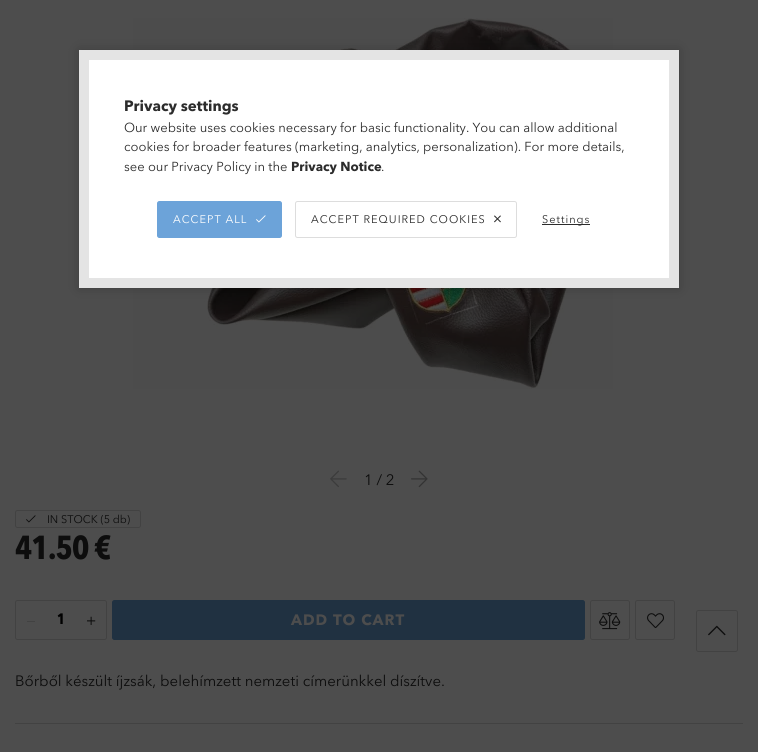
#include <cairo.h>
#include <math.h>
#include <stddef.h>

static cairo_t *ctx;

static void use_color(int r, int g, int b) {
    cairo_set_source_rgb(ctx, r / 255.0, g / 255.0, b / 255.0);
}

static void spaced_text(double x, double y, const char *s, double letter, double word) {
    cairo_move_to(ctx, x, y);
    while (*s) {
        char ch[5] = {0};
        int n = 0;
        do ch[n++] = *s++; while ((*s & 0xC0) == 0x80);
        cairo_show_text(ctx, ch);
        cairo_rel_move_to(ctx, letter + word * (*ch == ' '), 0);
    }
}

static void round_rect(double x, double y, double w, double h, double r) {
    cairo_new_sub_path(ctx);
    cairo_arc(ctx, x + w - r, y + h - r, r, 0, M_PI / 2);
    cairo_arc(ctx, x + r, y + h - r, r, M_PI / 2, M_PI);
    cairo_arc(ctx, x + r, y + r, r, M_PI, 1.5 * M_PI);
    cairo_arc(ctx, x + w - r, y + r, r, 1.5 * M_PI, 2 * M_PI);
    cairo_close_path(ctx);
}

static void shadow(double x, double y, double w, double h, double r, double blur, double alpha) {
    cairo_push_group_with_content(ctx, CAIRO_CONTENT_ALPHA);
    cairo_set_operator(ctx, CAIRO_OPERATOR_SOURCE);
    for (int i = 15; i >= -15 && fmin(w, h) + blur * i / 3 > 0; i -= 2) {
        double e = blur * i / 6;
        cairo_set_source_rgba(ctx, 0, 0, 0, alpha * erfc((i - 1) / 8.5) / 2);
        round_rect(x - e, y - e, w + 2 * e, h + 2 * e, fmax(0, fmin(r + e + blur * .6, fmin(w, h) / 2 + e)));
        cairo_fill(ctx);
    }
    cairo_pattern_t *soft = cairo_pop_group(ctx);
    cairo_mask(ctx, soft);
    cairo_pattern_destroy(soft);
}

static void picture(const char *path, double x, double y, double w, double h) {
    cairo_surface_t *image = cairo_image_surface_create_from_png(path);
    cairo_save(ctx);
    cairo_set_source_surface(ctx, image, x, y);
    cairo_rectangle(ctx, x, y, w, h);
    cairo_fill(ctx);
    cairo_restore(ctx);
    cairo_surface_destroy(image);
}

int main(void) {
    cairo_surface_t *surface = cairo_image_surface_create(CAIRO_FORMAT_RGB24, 758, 752);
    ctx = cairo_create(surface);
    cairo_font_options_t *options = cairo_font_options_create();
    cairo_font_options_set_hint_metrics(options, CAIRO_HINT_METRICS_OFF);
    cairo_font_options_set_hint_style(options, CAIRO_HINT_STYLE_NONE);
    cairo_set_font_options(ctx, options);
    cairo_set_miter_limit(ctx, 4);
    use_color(77, 77, 77);
    cairo_paint(ctx);
    picture("img3.png", 133, 18, 480, 371);
    use_color(0, 0, 0);
    shadow(79, 50, 600, 238, 0, 6, 0.2);
    use_color(255, 255, 255);
    cairo_rectangle(ctx, 84, 55, 590, 228);
    cairo_fill_preserve(ctx);
    use_color(228, 228, 228);
    cairo_set_line_width(ctx, 10);
    cairo_stroke(ctx);
    cairo_select_font_face(ctx, "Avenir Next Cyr", CAIRO_FONT_SLANT_NORMAL, CAIRO_FONT_WEIGHT_BOLD);
    cairo_set_font_size(ctx, 15);
    use_color(44, 44, 44);
    cairo_move_to(ctx, 124, 111);
    cairo_show_text(ctx, "Privacy settings");
    cairo_select_font_face(ctx, "Avenir Next Cyr", CAIRO_FONT_SLANT_NORMAL, CAIRO_FONT_WEIGHT_NORMAL);
    cairo_set_font_size(ctx, 13);
    cairo_move_to(ctx, 124, 132);
    cairo_show_text(ctx, "Our website uses cookies necessary for basic functionality. You can allow additional");
    cairo_move_to(ctx, 124, 151);
    cairo_show_text(ctx, "cookies for broader features (marketing, analytics, personalization). For more details,");
    cairo_move_to(ctx, 124, 171);
    cairo_show_text(ctx, "see our Privacy Policy in the");
    cairo_select_font_face(ctx, "Avenir Next Cyr", CAIRO_FONT_SLANT_NORMAL, CAIRO_FONT_WEIGHT_BOLD);
    cairo_move_to(ctx, 291, 171);
    cairo_show_text(ctx, "Privacy Notice");
    cairo_select_font_face(ctx, "Avenir Next Cyr", CAIRO_FONT_SLANT_NORMAL, CAIRO_FONT_WEIGHT_NORMAL);
    cairo_move_to(ctx, 381, 171);
    cairo_show_text(ctx, ".");
    use_color(108, 163, 217);
    round_rect(157.5, 201.5, 124, 36, 2);
    cairo_fill_preserve(ctx);
    cairo_set_line_width(ctx, 1);
    cairo_stroke(ctx);
    cairo_set_font_size(ctx, 11);
    use_color(255, 255, 255);
    spaced_text(173, 223, "ACCEPT ALL", 1, 0);
    picture("img1.png", 256, 215, 10, 8);
    round_rect(295.5, 201.5, 221, 36, 2);
    use_color(221, 221, 221);
    cairo_stroke(ctx);
    use_color(44, 44, 44);
    spaced_text(311, 223, "ACCEPT REQUIRED COOKIES", 1, 0);
    picture("img2.png", 494, 215, 7, 8);
    cairo_rectangle(ctx, 542, 224, 48, 1);
    cairo_fill(ctx);
    spaced_text(542, 223, "Settings", 1, 0);
    picture("img4.png", 330, 470, 17, 18);
    picture("img5.png", 411, 470, 17, 18);
    cairo_set_font_size(ctx, 15);
    use_color(13, 13, 13);
    cairo_move_to(ctx, 364, 485);
    cairo_show_text(ctx, "1 / 2");
    round_rect(15.5, 510.5, 125, 17, 2);
    use_color(66, 66, 66);
    cairo_stroke(ctx);
    picture("img6.png", 26, 515, 10, 8);
    cairo_set_font_size(ctx, 11);
    use_color(13, 13, 13);
    cairo_move_to(ctx, 47, 523);
    cairo_show_text(ctx, "IN STOCK (5 db)");
    cairo_select_font_face(ctx, "Avenir Next", CAIRO_FONT_SLANT_NORMAL, CAIRO_FONT_WEIGHT_BOLD);
    cairo_set_font_size(ctx, 33);
    spaced_text(15, 559, "41.50 €", -1, 0);
    round_rect(15.5, 600.5, 91, 39, 2);
    use_color(66, 66, 66);
    cairo_stroke(ctx);
    cairo_rectangle(ctx, 27, 621, 8, 1);
    cairo_fill(ctx);
    cairo_set_font_size(ctx, 15);
    use_color(0, 0, 0);
    cairo_move_to(ctx, 57, 624);
    cairo_show_text(ctx, "1");
    picture("img7.png", 87, 616, 9, 9);
    use_color(32, 49, 65);
    round_rect(112.5, 600.5, 472, 39, 2);
    cairo_fill_preserve(ctx);
    cairo_stroke(ctx);
    cairo_select_font_face(ctx, "Avenir Next Cyr", CAIRO_FONT_SLANT_NORMAL, CAIRO_FONT_WEIGHT_BOLD);
    use_color(77, 77, 77);
    spaced_text(291, 625, "ADD TO CART", 1, 0);
    round_rect(590.5, 600.5, 39, 39, 2);
    use_color(66, 66, 66);
    cairo_stroke(ctx);
    picture("img8.png", 599, 612, 22, 18);
    round_rect(635.5, 600.5, 39, 39, 2);
    cairo_stroke(ctx);
    picture("img9.png", 647, 613, 17, 15);
    cairo_select_font_face(ctx, "Avenir Next Cyr", CAIRO_FONT_SLANT_NORMAL, CAIRO_FONT_WEIGHT_NORMAL);
    use_color(13, 13, 13);
    cairo_move_to(ctx, 15, 686);
    cairo_show_text(ctx, "Bőrből készült íjzsák, belehímzett nemzeti címerünkkel díszítve.");
    use_color(66, 66, 66);
    cairo_rectangle(ctx, 15, 723, 728, 1);
    cairo_fill(ctx);
    round_rect(696.5, 610.5, 41, 41, 2);
    cairo_stroke(ctx);
    picture("img10.png", 708, 625, 18, 11);
    cairo_surface_write_to_png(surface, "result.png");
    cairo_font_options_destroy(options);
    cairo_destroy(ctx);
    cairo_surface_destroy(surface);
    return 0;
}
